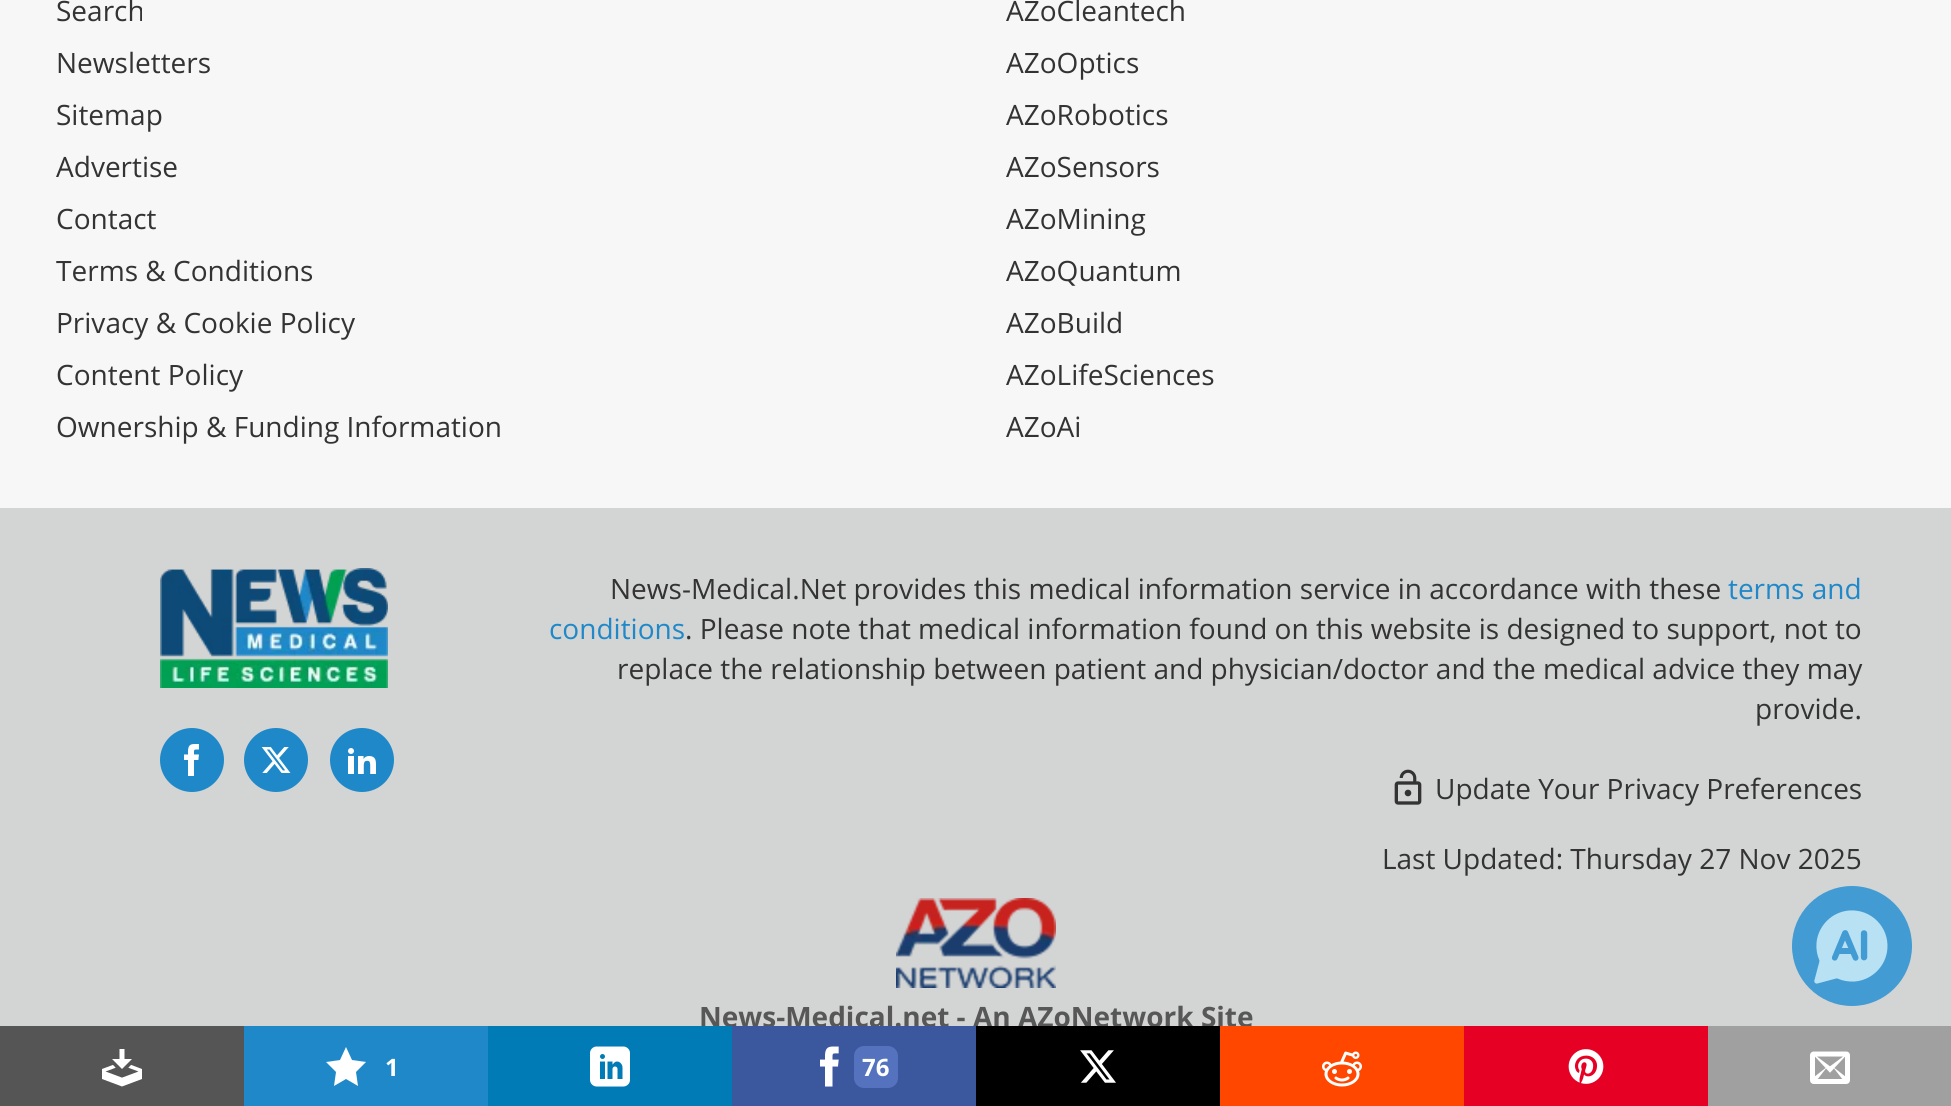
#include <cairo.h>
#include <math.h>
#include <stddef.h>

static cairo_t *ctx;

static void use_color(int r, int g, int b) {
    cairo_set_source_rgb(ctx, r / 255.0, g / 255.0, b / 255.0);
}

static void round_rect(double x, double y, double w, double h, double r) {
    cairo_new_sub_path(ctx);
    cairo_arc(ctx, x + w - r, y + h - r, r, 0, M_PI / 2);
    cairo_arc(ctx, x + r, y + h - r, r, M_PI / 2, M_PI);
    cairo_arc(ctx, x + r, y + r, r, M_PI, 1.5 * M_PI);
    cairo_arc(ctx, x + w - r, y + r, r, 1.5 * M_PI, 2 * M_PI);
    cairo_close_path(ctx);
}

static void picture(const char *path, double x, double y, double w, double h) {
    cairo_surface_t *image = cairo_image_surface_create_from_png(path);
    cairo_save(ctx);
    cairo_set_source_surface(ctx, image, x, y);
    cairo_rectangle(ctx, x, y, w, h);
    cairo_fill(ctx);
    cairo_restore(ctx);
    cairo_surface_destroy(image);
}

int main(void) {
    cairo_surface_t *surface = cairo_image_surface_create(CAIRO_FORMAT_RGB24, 1951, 1106);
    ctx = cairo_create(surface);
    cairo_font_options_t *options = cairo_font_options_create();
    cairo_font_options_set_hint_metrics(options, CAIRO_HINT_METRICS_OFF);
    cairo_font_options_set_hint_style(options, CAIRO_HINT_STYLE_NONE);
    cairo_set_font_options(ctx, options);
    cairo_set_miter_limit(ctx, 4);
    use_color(247, 247, 247);
    cairo_paint(ctx);
    cairo_select_font_face(ctx, "Open Sans", CAIRO_FONT_SLANT_NORMAL, CAIRO_FONT_WEIGHT_NORMAL);
    cairo_set_font_size(ctx, 28);
    use_color(51, 51, 51);
    cairo_move_to(ctx, 56, 21);
    cairo_show_text(ctx, "Search");
    cairo_move_to(ctx, 56, 73);
    cairo_show_text(ctx, "Newsletters");
    cairo_move_to(ctx, 56, 125);
    cairo_show_text(ctx, "Sitemap");
    cairo_move_to(ctx, 56, 177);
    cairo_show_text(ctx, "Advertise");
    cairo_move_to(ctx, 56, 229);
    cairo_show_text(ctx, "Contact");
    cairo_move_to(ctx, 56, 281);
    cairo_show_text(ctx, "Terms & Conditions");
    cairo_move_to(ctx, 56, 333);
    cairo_show_text(ctx, "Privacy & Cookie Policy");
    cairo_move_to(ctx, 56, 385);
    cairo_show_text(ctx, "Content Policy");
    cairo_move_to(ctx, 56, 437);
    cairo_show_text(ctx, "Ownership & Funding Information");
    cairo_move_to(ctx, 1006, 21);
    cairo_show_text(ctx, "AZoCleantech");
    cairo_move_to(ctx, 1006, 73);
    cairo_show_text(ctx, "AZoOptics");
    cairo_move_to(ctx, 1006, 125);
    cairo_show_text(ctx, "AZoRobotics");
    cairo_move_to(ctx, 1006, 177);
    cairo_show_text(ctx, "AZoSensors");
    cairo_move_to(ctx, 1006, 229);
    cairo_show_text(ctx, "AZoMining");
    cairo_move_to(ctx, 1006, 281);
    cairo_show_text(ctx, "AZoQuantum");
    cairo_move_to(ctx, 1006, 333);
    cairo_show_text(ctx, "AZoBuild");
    cairo_move_to(ctx, 1006, 385);
    cairo_show_text(ctx, "AZoLifeSciences");
    cairo_move_to(ctx, 1006, 437);
    cairo_show_text(ctx, "AZoAi");
    use_color(211, 212, 212);
    cairo_rectangle(ctx, 0, 508, 1951, 518);
    cairo_fill(ctx);
    picture("img1.png", 160, 568, 228, 120);
    use_color(30, 136, 201);
    cairo_arc(ctx, 192, 760, 32, 0, 2 * M_PI);
    cairo_fill(ctx);
    picture("img2.png", 184, 744, 15, 32);
    cairo_arc(ctx, 276, 760, 32, 0, 2 * M_PI);
    cairo_fill(ctx);
    picture("img3.png", 261, 747, 30, 26);
    cairo_arc(ctx, 362, 760, 32, 0, 2 * M_PI);
    cairo_fill(ctx);
    picture("img4.png", 348, 748, 28, 26);
    use_color(51, 51, 51);
    cairo_move_to(ctx, 610, 599);
    cairo_show_text(ctx, "News-Medical.Net provides this medical information service in accordance with these");
    use_color(30, 136, 201);
    cairo_move_to(ctx, 1728, 599);
    cairo_show_text(ctx, "terms and");
    cairo_move_to(ctx, 549, 639);
    cairo_show_text(ctx, "conditions");
    use_color(51, 51, 51);
    cairo_move_to(ctx, 685, 639);
    cairo_show_text(ctx, ". Please note that medical information found on this website is designed to support, not to");
    cairo_move_to(ctx, 617, 679);
    cairo_show_text(ctx, "replace the relationship between patient and physician/doctor and the medical advice they may");
    cairo_move_to(ctx, 1755, 719);
    cairo_show_text(ctx, "provide.");
    picture("img5.png", 1394, 769, 28, 36);
    cairo_move_to(ctx, 1435, 799);
    cairo_show_text(ctx, "Update Your Privacy Preferences");
    cairo_move_to(ctx, 1382, 869);
    cairo_show_text(ctx, "Last Updated: Thursday 27 Nov 2025");
    picture("img6.png", 896, 898, 160, 90);
    cairo_select_font_face(ctx, "Open Sans", CAIRO_FONT_SLANT_NORMAL, CAIRO_FONT_WEIGHT_BOLD);
    use_color(87, 87, 87);
    cairo_move_to(ctx, 699, 1027);
    cairo_show_text(ctx, "News-Medical.net - An AZoNetwork Site");
    picture("img7.png", 1792, 886, 120, 120);
    use_color(85, 85, 85);
    cairo_rectangle(ctx, 0, 1026, 244, 80);
    cairo_fill(ctx);
    picture("img8.png", 102, 1049, 40, 38);
    use_color(30, 136, 201);
    cairo_rectangle(ctx, 244, 1026, 244, 80);
    cairo_fill(ctx);
    use_color(255, 255, 255);
    cairo_new_path(ctx);
    cairo_move_to(ctx, 366, 1062);
    cairo_line_to(ctx, 352, 1060);
    cairo_line_to(ctx, 346, 1047);
    cairo_line_to(ctx, 340, 1060);
    cairo_line_to(ctx, 326, 1062);
    cairo_line_to(ctx, 336, 1072);
    cairo_line_to(ctx, 334, 1086);
    cairo_line_to(ctx, 346, 1079);
    cairo_line_to(ctx, 358, 1086);
    cairo_line_to(ctx, 356, 1072);
    cairo_close_path(ctx);
    cairo_fill(ctx);
    cairo_set_font_size(ctx, 24);
    cairo_move_to(ctx, 385, 1076);
    cairo_show_text(ctx, "1");
    use_color(0, 123, 182);
    cairo_rectangle(ctx, 488, 1026, 244, 80);
    cairo_fill(ctx);
    picture("img9.png", 590, 1046, 40, 41);
    use_color(59, 87, 157);
    cairo_rectangle(ctx, 732, 1026, 244, 80);
    cairo_fill(ctx);
    picture("img10.png", 820, 1046, 19, 41);
    use_color(84, 114, 190);
    round_rect(854, 1046, 44, 42, 10);
    cairo_fill(ctx);
    use_color(255, 255, 255);
    cairo_move_to(ctx, 862, 1076);
    cairo_show_text(ctx, "76");
    use_color(0, 0, 0);
    cairo_rectangle(ctx, 976, 1026, 244, 80);
    cairo_fill(ctx);
    picture("img11.png", 1080, 1050, 36, 33);
    use_color(255, 71, 0);
    cairo_rectangle(ctx, 1220, 1026, 244, 80);
    cairo_fill(ctx);
    picture("img12.png", 1322, 1051, 40, 36);
    use_color(230, 0, 35);
    cairo_rectangle(ctx, 1464, 1026, 244, 80);
    cairo_fill(ctx);
    picture("img13.png", 1568, 1049, 36, 35);
    use_color(160, 160, 160);
    cairo_rectangle(ctx, 1708, 1026, 243, 80);
    cairo_fill(ctx);
    picture("img14.png", 1810, 1051, 40, 33);
    cairo_surface_write_to_png(surface, "result.png");
    cairo_font_options_destroy(options);
    cairo_destroy(ctx);
    cairo_surface_destroy(surface);
    return 0;
}
